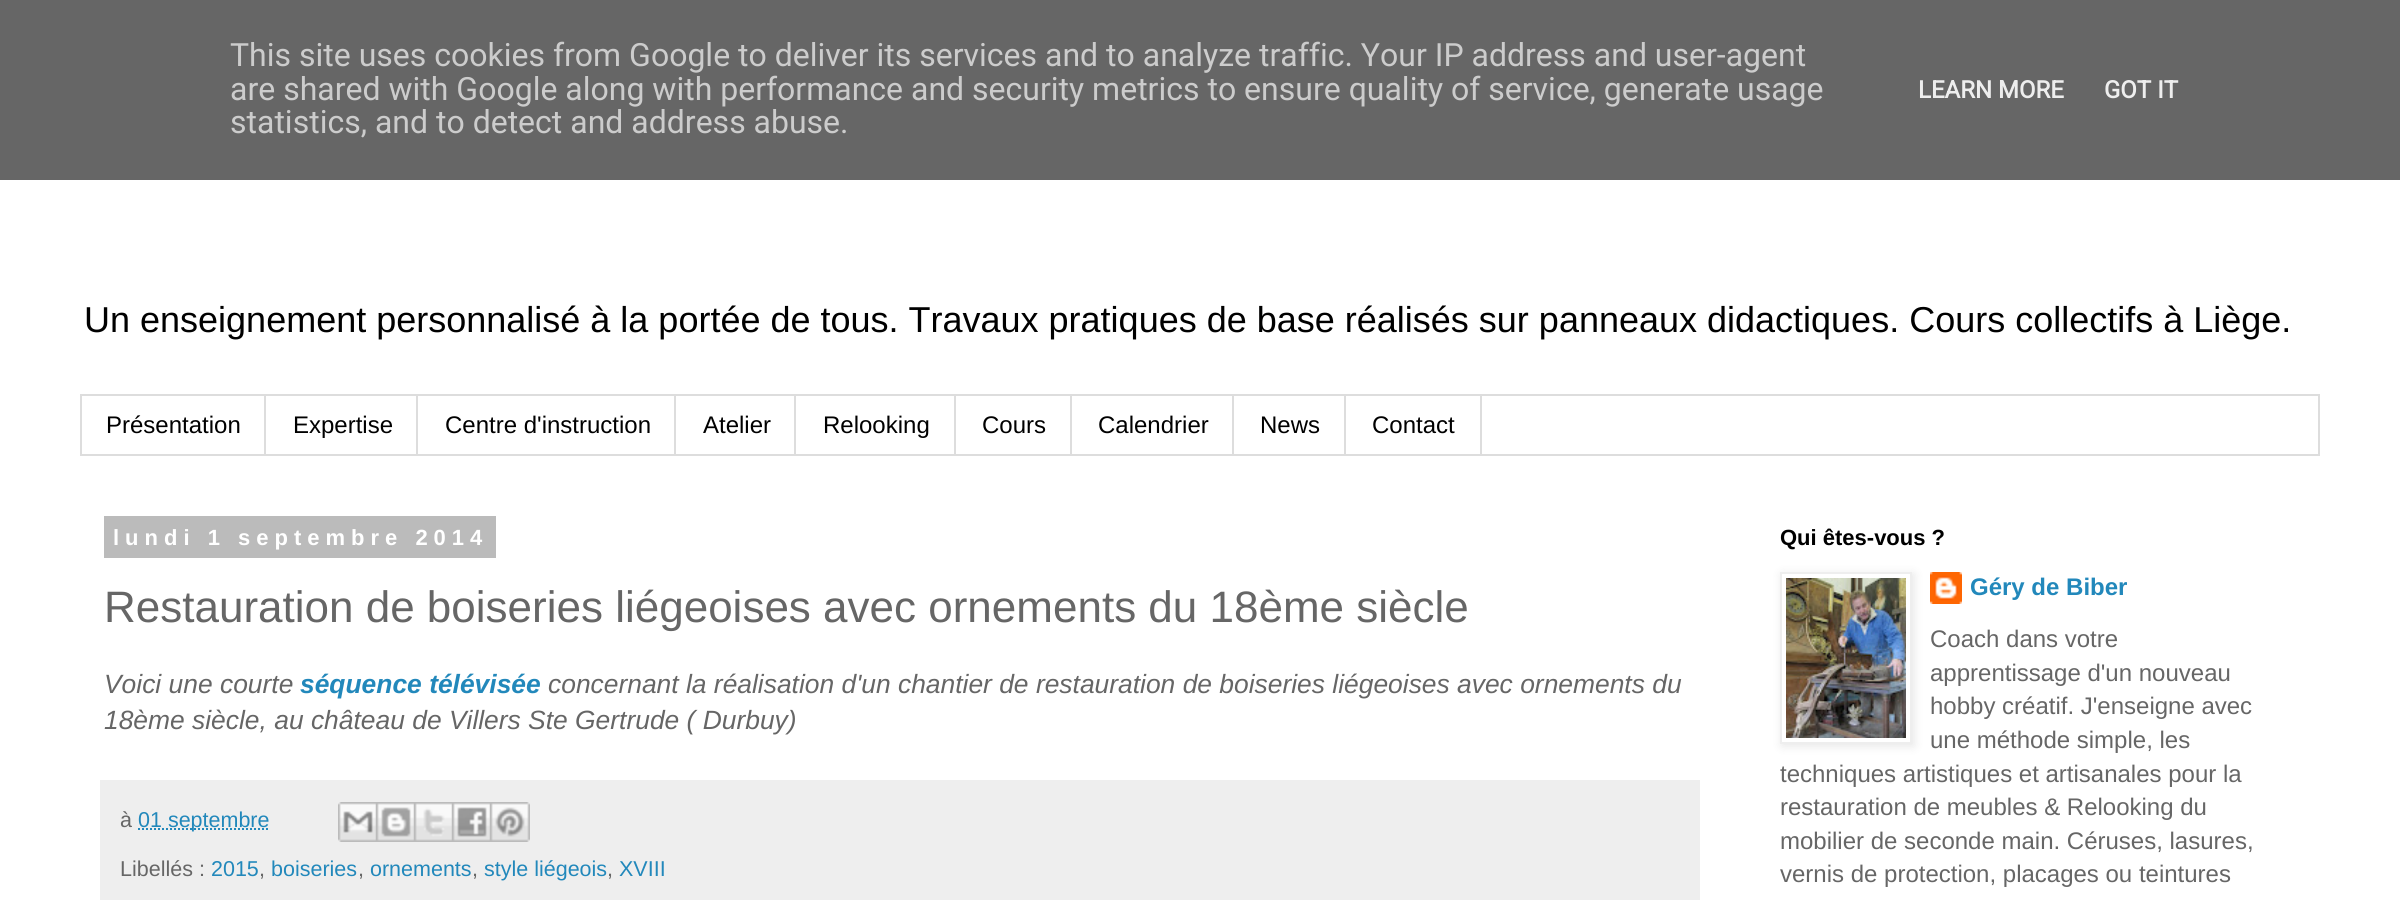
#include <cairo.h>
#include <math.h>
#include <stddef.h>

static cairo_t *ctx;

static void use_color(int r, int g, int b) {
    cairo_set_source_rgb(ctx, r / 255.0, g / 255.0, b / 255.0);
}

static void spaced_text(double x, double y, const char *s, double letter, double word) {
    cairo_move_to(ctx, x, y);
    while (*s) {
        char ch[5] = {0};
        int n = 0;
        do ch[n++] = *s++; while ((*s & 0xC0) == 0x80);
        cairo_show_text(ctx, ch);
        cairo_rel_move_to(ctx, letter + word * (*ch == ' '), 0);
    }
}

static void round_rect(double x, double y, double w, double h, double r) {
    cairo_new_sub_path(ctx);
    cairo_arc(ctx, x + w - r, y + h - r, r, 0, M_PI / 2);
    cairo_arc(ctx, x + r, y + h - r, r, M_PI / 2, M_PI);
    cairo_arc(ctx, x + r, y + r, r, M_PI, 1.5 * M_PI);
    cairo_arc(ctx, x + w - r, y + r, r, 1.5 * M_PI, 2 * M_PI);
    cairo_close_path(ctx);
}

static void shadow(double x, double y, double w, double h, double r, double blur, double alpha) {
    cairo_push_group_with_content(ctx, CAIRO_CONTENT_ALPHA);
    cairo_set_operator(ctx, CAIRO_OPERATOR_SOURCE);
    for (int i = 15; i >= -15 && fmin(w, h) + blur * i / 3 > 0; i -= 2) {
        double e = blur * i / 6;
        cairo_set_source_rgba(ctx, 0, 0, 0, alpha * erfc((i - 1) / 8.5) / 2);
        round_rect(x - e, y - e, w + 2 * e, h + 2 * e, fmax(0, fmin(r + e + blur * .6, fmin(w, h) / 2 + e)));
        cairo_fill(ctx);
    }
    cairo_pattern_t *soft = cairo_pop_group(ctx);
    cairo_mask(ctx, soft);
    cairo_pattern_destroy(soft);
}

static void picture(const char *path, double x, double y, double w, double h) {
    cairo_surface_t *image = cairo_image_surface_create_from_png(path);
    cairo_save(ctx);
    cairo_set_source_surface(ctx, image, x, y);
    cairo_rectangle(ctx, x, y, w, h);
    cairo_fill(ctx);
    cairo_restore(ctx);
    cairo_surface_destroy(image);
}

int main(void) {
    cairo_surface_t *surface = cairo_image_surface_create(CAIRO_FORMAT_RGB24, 2400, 900);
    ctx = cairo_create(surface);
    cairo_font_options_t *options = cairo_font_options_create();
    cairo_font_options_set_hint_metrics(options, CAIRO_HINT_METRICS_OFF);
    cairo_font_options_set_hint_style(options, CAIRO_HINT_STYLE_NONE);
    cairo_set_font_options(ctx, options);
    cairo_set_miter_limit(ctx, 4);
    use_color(255, 255, 255);
    cairo_paint(ctx);
    use_color(102, 102, 102);
    cairo_rectangle(ctx, 0, 0, 2400, 180);
    cairo_fill(ctx);
    cairo_select_font_face(ctx, "Roboto", CAIRO_FONT_SLANT_NORMAL, CAIRO_FONT_WEIGHT_NORMAL);
    cairo_set_font_size(ctx, 32);
    use_color(204, 204, 204);
    cairo_move_to(ctx, 230, 66);
    cairo_show_text(ctx, "This site uses cookies from Google to deliver its services and to analyze traffic. Your IP address and user-agent");
    cairo_move_to(ctx, 230, 100);
    cairo_show_text(ctx, "are shared with Google along with performance and security metrics to ensure quality of service, generate usage");
    cairo_move_to(ctx, 230, 133);
    cairo_show_text(ctx, "statistics, and to detect and address abuse.");
    cairo_select_font_face(ctx, "Roboto", CAIRO_FONT_SLANT_NORMAL, CAIRO_FONT_WEIGHT_BOLD);
    cairo_set_font_size(ctx, 24);
    use_color(238, 238, 238);
    cairo_move_to(ctx, 1918, 98);
    cairo_show_text(ctx, "LEARN MORE");
    cairo_move_to(ctx, 2104, 98);
    cairo_show_text(ctx, "GOT IT");
    cairo_select_font_face(ctx, "Liberation Sans", CAIRO_FONT_SLANT_NORMAL, CAIRO_FONT_WEIGHT_NORMAL);
    cairo_set_font_size(ctx, 36);
    use_color(0, 0, 0);
    cairo_move_to(ctx, 84, 332);
    cairo_show_text(ctx, "Un enseignement personnalisé à la portée de tous. Travaux pratiques de base réalisés sur panneaux didactiques. Cours collectifs à Liège.");
    cairo_rectangle(ctx, 81, 395, 2238, 60);
    use_color(221, 221, 221);
    cairo_stroke(ctx);
    cairo_rectangle(ctx, 264, 396, 2, 58);
    cairo_fill(ctx);
    cairo_set_font_size(ctx, 24);
    use_color(0, 0, 0);
    cairo_move_to(ctx, 106, 433);
    cairo_show_text(ctx, "Présentation");
    use_color(221, 221, 221);
    cairo_rectangle(ctx, 416, 396, 2, 58);
    cairo_fill(ctx);
    use_color(0, 0, 0);
    cairo_move_to(ctx, 293, 433);
    cairo_show_text(ctx, "Expertise");
    use_color(221, 221, 221);
    cairo_rectangle(ctx, 674, 396, 2, 58);
    cairo_fill(ctx);
    use_color(0, 0, 0);
    cairo_move_to(ctx, 445, 433);
    cairo_show_text(ctx, "Centre d'instruction");
    use_color(221, 221, 221);
    cairo_rectangle(ctx, 794, 396, 2, 58);
    cairo_fill(ctx);
    use_color(0, 0, 0);
    cairo_move_to(ctx, 703, 433);
    cairo_show_text(ctx, "Atelier");
    use_color(221, 221, 221);
    cairo_rectangle(ctx, 954, 396, 2, 58);
    cairo_fill(ctx);
    use_color(0, 0, 0);
    cairo_move_to(ctx, 823, 433);
    cairo_show_text(ctx, "Relooking");
    use_color(221, 221, 221);
    cairo_rectangle(ctx, 1070, 396, 2, 58);
    cairo_fill(ctx);
    use_color(0, 0, 0);
    cairo_move_to(ctx, 982, 433);
    cairo_show_text(ctx, "Cours");
    use_color(221, 221, 221);
    cairo_rectangle(ctx, 1232, 396, 2, 58);
    cairo_fill(ctx);
    use_color(0, 0, 0);
    cairo_move_to(ctx, 1098, 433);
    cairo_show_text(ctx, "Calendrier");
    use_color(221, 221, 221);
    cairo_rectangle(ctx, 1344, 396, 2, 58);
    cairo_fill(ctx);
    use_color(0, 0, 0);
    cairo_move_to(ctx, 1260, 433);
    cairo_show_text(ctx, "News");
    use_color(221, 221, 221);
    cairo_rectangle(ctx, 1480, 396, 2, 58);
    cairo_fill(ctx);
    use_color(0, 0, 0);
    cairo_move_to(ctx, 1372, 433);
    cairo_show_text(ctx, "Contact");
    use_color(187, 187, 187);
    cairo_rectangle(ctx, 104, 516, 392, 42);
    cairo_fill(ctx);
    cairo_select_font_face(ctx, "Liberation Sans", CAIRO_FONT_SLANT_NORMAL, CAIRO_FONT_WEIGHT_BOLD);
    cairo_set_font_size(ctx, 22);
    use_color(255, 255, 255);
    spaced_text(113, 545, "lundi 1 septembre 2014", 6, 0);
    cairo_select_font_face(ctx, "Liberation Sans", CAIRO_FONT_SLANT_NORMAL, CAIRO_FONT_WEIGHT_NORMAL);
    cairo_set_font_size(ctx, 44);
    use_color(102, 102, 102);
    cairo_move_to(ctx, 104, 622);
    cairo_show_text(ctx, "Restauration de boiseries liégeoises avec ornements du 18ème siècle");
    cairo_select_font_face(ctx, "Liberation Sans", CAIRO_FONT_SLANT_ITALIC, CAIRO_FONT_WEIGHT_NORMAL);
    cairo_set_font_size(ctx, 26.4);
    cairo_move_to(ctx, 104, 693);
    cairo_show_text(ctx, "Voici une courte");
    cairo_select_font_face(ctx, "Liberation Sans", CAIRO_FONT_SLANT_ITALIC, CAIRO_FONT_WEIGHT_BOLD);
    use_color(34, 136, 187);
    cairo_move_to(ctx, 300, 693);
    cairo_show_text(ctx, "séquence télévisée");
    cairo_select_font_face(ctx, "Liberation Sans", CAIRO_FONT_SLANT_ITALIC, CAIRO_FONT_WEIGHT_NORMAL);
    use_color(102, 102, 102);
    cairo_move_to(ctx, 548, 693);
    cairo_show_text(ctx, "concernant la réalisation d'un chantier de restauration de boiseries liégeoises avec ornements du");
    cairo_move_to(ctx, 104, 729);
    cairo_show_text(ctx, "18ème siècle, au château de Villers Ste Gertrude ( Durbuy)");
    use_color(238, 238, 238);
    cairo_rectangle(ctx, 100, 780, 1600, 120);
    cairo_fill(ctx);
    cairo_select_font_face(ctx, "Liberation Sans", CAIRO_FONT_SLANT_NORMAL, CAIRO_FONT_WEIGHT_NORMAL);
    cairo_set_font_size(ctx, 21.5);
    use_color(102, 102, 102);
    cairo_move_to(ctx, 120, 827);
    cairo_show_text(ctx, "à");
    cairo_new_path(ctx);
    cairo_move_to(ctx, 138, 829);
    cairo_line_to(ctx, 270, 829);
    use_color(34, 136, 187);
    cairo_set_dash(ctx, (double[]){2, 2}, 2, 0);
    cairo_stroke(ctx);
    cairo_move_to(ctx, 138, 827);
    cairo_show_text(ctx, "01 septembre");
    picture("img1.png", 338, 802, 38, 40);
    picture("img2.png", 376, 802, 38, 40);
    picture("img3.png", 414, 802, 38, 40);
    picture("img4.png", 452, 802, 38, 40);
    picture("img5.png", 490, 802, 40, 40);
    use_color(102, 102, 102);
    cairo_move_to(ctx, 120, 876);
    cairo_show_text(ctx, "Libellés :");
    use_color(34, 136, 187);
    cairo_move_to(ctx, 211, 876);
    cairo_show_text(ctx, "2015");
    use_color(102, 102, 102);
    cairo_move_to(ctx, 259, 876);
    cairo_show_text(ctx, ",");
    use_color(34, 136, 187);
    cairo_move_to(ctx, 271, 876);
    cairo_show_text(ctx, "boiseries");
    use_color(102, 102, 102);
    cairo_move_to(ctx, 358, 876);
    cairo_show_text(ctx, ",");
    use_color(34, 136, 187);
    cairo_move_to(ctx, 370, 876);
    cairo_show_text(ctx, "ornements");
    use_color(102, 102, 102);
    cairo_move_to(ctx, 472, 876);
    cairo_show_text(ctx, ",");
    use_color(34, 136, 187);
    cairo_move_to(ctx, 484, 876);
    cairo_show_text(ctx, "style liégeois");
    use_color(102, 102, 102);
    cairo_move_to(ctx, 607, 876);
    cairo_show_text(ctx, ",");
    use_color(34, 136, 187);
    cairo_move_to(ctx, 619, 876);
    cairo_show_text(ctx, "XVIII");
    cairo_select_font_face(ctx, "Liberation Sans", CAIRO_FONT_SLANT_NORMAL, CAIRO_FONT_WEIGHT_BOLD);
    cairo_set_font_size(ctx, 22);
    use_color(0, 0, 0);
    cairo_move_to(ctx, 1780, 545);
    cairo_show_text(ctx, "Qui êtes-vous ?");
    cairo_save(ctx);
    cairo_set_fill_rule(ctx, CAIRO_FILL_RULE_EVEN_ODD);
    cairo_new_path(ctx);
    cairo_move_to(ctx, 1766, 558);
    cairo_line_to(ctx, 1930, 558);
    cairo_line_to(ctx, 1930, 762);
    cairo_line_to(ctx, 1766, 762);
    cairo_close_path(ctx);
    cairo_move_to(ctx, 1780, 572);
    cairo_line_to(ctx, 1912, 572);
    cairo_line_to(ctx, 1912, 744);
    cairo_line_to(ctx, 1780, 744);
    cairo_close_path(ctx);
    cairo_clip(ctx);
    use_color(0, 0, 0);
    shadow(1782, 574, 132, 172, 0, 5, 0.1);
    cairo_restore(ctx);
    cairo_rectangle(ctx, 1781, 573, 130, 170);
    use_color(238, 238, 238);
    cairo_set_dash(ctx, NULL, 0, 0);
    cairo_stroke(ctx);
    picture("img6.png", 1786, 578, 120, 160);
    picture("img7.png", 1930, 572, 32, 32);
    cairo_set_font_size(ctx, 24);
    use_color(34, 136, 187);
    cairo_move_to(ctx, 1970, 595);
    cairo_show_text(ctx, "Géry de Biber");
    cairo_select_font_face(ctx, "Liberation Sans", CAIRO_FONT_SLANT_NORMAL, CAIRO_FONT_WEIGHT_NORMAL);
    use_color(102, 102, 102);
    cairo_move_to(ctx, 1930, 647);
    cairo_show_text(ctx, "Coach dans votre");
    cairo_move_to(ctx, 1930, 681);
    cairo_show_text(ctx, "apprentissage d'un nouveau");
    cairo_move_to(ctx, 1930, 714);
    cairo_show_text(ctx, "hobby créatif. J'enseigne avec");
    cairo_move_to(ctx, 1930, 748);
    cairo_show_text(ctx, "une méthode simple, les");
    cairo_move_to(ctx, 1780, 782);
    cairo_show_text(ctx, "techniques artistiques et artisanales pour la");
    cairo_move_to(ctx, 1780, 815);
    cairo_show_text(ctx, "restauration de meubles & Relooking du");
    cairo_move_to(ctx, 1780, 849);
    cairo_show_text(ctx, "mobilier de seconde main. Céruses, lasures,");
    cairo_move_to(ctx, 1780, 882);
    cairo_show_text(ctx, "vernis de protection, placages ou teintures");
    cairo_surface_write_to_png(surface, "result.png");
    cairo_font_options_destroy(options);
    cairo_destroy(ctx);
    cairo_surface_destroy(surface);
    return 0;
}
